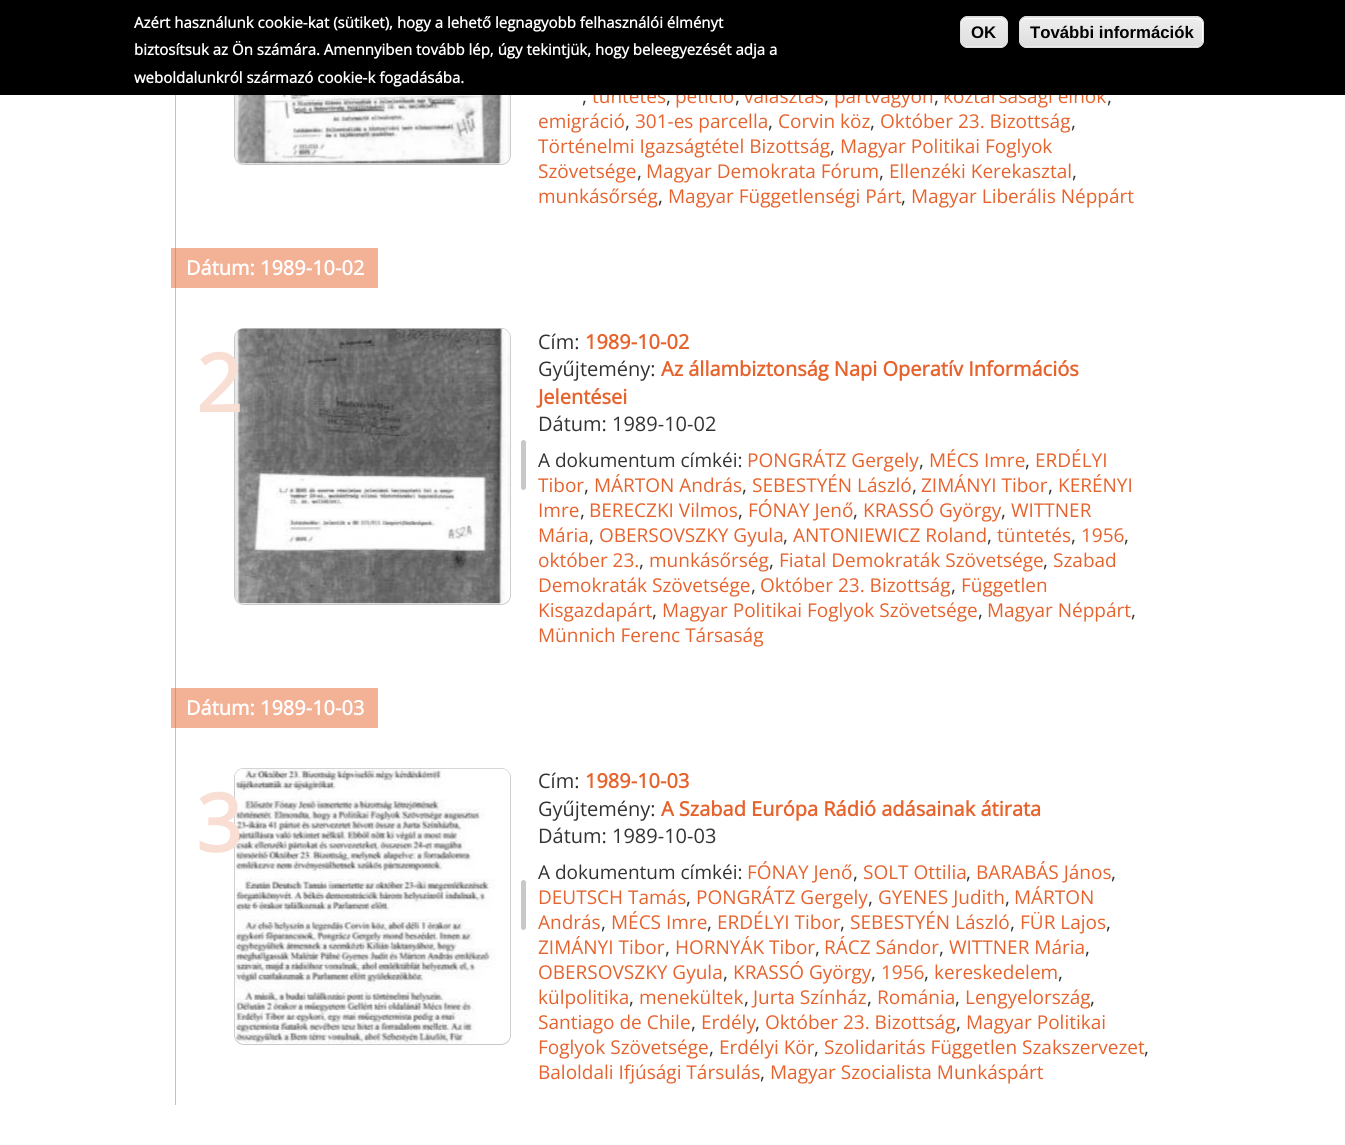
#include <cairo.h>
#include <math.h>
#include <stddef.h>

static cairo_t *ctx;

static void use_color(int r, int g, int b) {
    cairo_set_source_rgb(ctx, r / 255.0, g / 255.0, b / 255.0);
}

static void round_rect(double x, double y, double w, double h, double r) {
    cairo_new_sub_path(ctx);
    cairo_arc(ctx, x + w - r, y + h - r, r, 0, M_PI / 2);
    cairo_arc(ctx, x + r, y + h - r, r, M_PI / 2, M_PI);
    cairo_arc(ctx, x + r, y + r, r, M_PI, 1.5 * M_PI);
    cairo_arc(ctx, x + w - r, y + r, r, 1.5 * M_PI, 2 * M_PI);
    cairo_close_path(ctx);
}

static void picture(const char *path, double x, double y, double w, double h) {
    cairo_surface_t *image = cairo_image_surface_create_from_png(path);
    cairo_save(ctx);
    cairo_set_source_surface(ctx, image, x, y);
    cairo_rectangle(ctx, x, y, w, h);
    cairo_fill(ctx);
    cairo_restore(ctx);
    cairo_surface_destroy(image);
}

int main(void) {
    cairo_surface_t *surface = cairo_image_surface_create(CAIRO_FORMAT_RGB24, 1345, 1145);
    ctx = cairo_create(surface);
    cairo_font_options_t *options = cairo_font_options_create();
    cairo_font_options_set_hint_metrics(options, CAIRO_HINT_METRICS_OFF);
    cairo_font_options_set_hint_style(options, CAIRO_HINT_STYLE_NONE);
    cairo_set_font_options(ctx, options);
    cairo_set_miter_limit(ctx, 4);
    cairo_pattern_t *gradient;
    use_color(255, 255, 255);
    cairo_paint(ctx);
    use_color(243, 177, 150);
    cairo_rectangle(ctx, 171, 688, 207, 40);
    cairo_fill(ctx);
    cairo_rectangle(ctx, 171, 248, 207, 40);
    cairo_fill(ctx);
    round_rect(234.5, -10.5, 276, 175, 9.5);
    use_color(200, 200, 200);
    cairo_set_line_width(ctx, 1);
    cairo_stroke(ctx);
    cairo_select_font_face(ctx, "Open Sans", CAIRO_FONT_SLANT_NORMAL, CAIRO_FONT_WEIGHT_NORMAL);
    cairo_set_font_size(ctx, 19);
    use_color(230, 99, 45);
    cairo_move_to(ctx, 592, 103);
    cairo_show_text(ctx, "tüntetés");
    cairo_move_to(ctx, 675, 103);
    cairo_show_text(ctx, "petíció");
    cairo_move_to(ctx, 744, 103);
    cairo_show_text(ctx, "választás");
    cairo_move_to(ctx, 834, 103);
    cairo_show_text(ctx, "pártvagyon");
    cairo_move_to(ctx, 943, 103);
    cairo_show_text(ctx, "köztársasági elnök");
    use_color(0, 0, 0);
    cairo_rectangle(ctx, 0, 0, 1345, 95);
    cairo_fill(ctx);
    cairo_select_font_face(ctx, "Open Sans", CAIRO_FONT_SLANT_NORMAL, CAIRO_FONT_WEIGHT_BOLD);
    cairo_set_font_size(ctx, 15);
    use_color(255, 255, 255);
    cairo_move_to(ctx, 134, 28);
    cairo_show_text(ctx, "Azért használunk cookie-kat (sütiket), hogy a lehető legnagyobb felhasználói élményt");
    cairo_move_to(ctx, 134, 55);
    cairo_show_text(ctx, "biztosítsuk az Ön számára. Amennyiben tovább lép, úgy tekintjük, hogy beleegyezését adja a");
    cairo_move_to(ctx, 134, 83);
    cairo_show_text(ctx, "weboldalunkról származó cookie-k fogadásába.");
    cairo_save(ctx);
    round_rect(960, 16, 48, 32, 8);
    cairo_clip(ctx);
    gradient = cairo_pattern_create_linear(984, -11, 984, 18);
    cairo_pattern_add_color_stop_rgba(gradient, 0.05, 0.929, 0.929, 0.929, 1);
    cairo_pattern_add_color_stop_rgba(gradient, 1, 0.875, 0.875, 0.875, 1);
    cairo_set_source(ctx, gradient);
    cairo_pattern_destroy(gradient);
    cairo_rectangle(ctx, 960, 16, 48, 2);
    cairo_fill(ctx);
    gradient = cairo_pattern_create_linear(984, 17, 984, 46);
    cairo_pattern_add_color_stop_rgba(gradient, 0.05, 0.929, 0.929, 0.929, 1);
    cairo_pattern_add_color_stop_rgba(gradient, 1, 0.875, 0.875, 0.875, 1);
    cairo_set_source(ctx, gradient);
    cairo_pattern_destroy(gradient);
    cairo_rectangle(ctx, 960, 18, 48, 28);
    cairo_fill(ctx);
    gradient = cairo_pattern_create_linear(984, 46, 984, 75);
    cairo_pattern_add_color_stop_rgba(gradient, 0.05, 0.929, 0.929, 0.929, 1);
    cairo_pattern_add_color_stop_rgba(gradient, 1, 0.875, 0.875, 0.875, 1);
    cairo_set_source(ctx, gradient);
    cairo_pattern_destroy(gradient);
    cairo_rectangle(ctx, 960, 46, 48, 2);
    cairo_fill(ctx);
    cairo_restore(ctx);
    cairo_set_fill_rule(ctx, CAIRO_FILL_RULE_EVEN_ODD);
    cairo_new_path(ctx);
    cairo_move_to(ctx, 968, 19);
    cairo_line_to(ctx, 995, 19);
    cairo_curve_to(ctx, 1004, 19, 1006, 20, 1006, 27);
    cairo_curve_to(ctx, 1006, 18, 1002, 18, 994, 18);
    cairo_line_to(ctx, 972, 18);
    cairo_curve_to(ctx, 963, 18, 961, 18, 961, 28);
    cairo_curve_to(ctx, 961, 23, 962, 19, 968, 19);
    cairo_close_path(ctx);
    cairo_move_to(ctx, 961, 41);
    cairo_line_to(ctx, 961, 39);
    cairo_close_path(ctx);
    cairo_fill(ctx);
    round_rect(960.5, 16.5, 47, 31, 7.5);
    use_color(220, 220, 220);
    cairo_stroke(ctx);
    cairo_select_font_face(ctx, "Liberation Sans", CAIRO_FONT_SLANT_NORMAL, CAIRO_FONT_WEIGHT_BOLD);
    cairo_set_font_size(ctx, 16.75);
    use_color(0, 0, 0);
    cairo_move_to(ctx, 971, 38);
    cairo_show_text(ctx, "OK");
    cairo_save(ctx);
    cairo_set_fill_rule(ctx, CAIRO_FILL_RULE_WINDING);
    round_rect(1019, 16, 185, 32, 8);
    cairo_clip(ctx);
    gradient = cairo_pattern_create_linear(1111, -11, 1111, 18);
    cairo_pattern_add_color_stop_rgba(gradient, 0.05, 0.929, 0.929, 0.929, 1);
    cairo_pattern_add_color_stop_rgba(gradient, 1, 0.875, 0.875, 0.875, 1);
    cairo_set_source(ctx, gradient);
    cairo_pattern_destroy(gradient);
    cairo_rectangle(ctx, 1019, 16, 185, 2);
    cairo_fill(ctx);
    gradient = cairo_pattern_create_linear(1111, 17, 1111, 46);
    cairo_pattern_add_color_stop_rgba(gradient, 0.05, 0.929, 0.929, 0.929, 1);
    cairo_pattern_add_color_stop_rgba(gradient, 1, 0.875, 0.875, 0.875, 1);
    cairo_set_source(ctx, gradient);
    cairo_pattern_destroy(gradient);
    cairo_rectangle(ctx, 1019, 18, 185, 28);
    cairo_fill(ctx);
    gradient = cairo_pattern_create_linear(1111, 46, 1111, 75);
    cairo_pattern_add_color_stop_rgba(gradient, 0.05, 0.929, 0.929, 0.929, 1);
    cairo_pattern_add_color_stop_rgba(gradient, 1, 0.875, 0.875, 0.875, 1);
    cairo_set_source(ctx, gradient);
    cairo_pattern_destroy(gradient);
    cairo_rectangle(ctx, 1019, 46, 185, 2);
    cairo_fill(ctx);
    cairo_restore(ctx);
    use_color(255, 255, 255);
    cairo_set_fill_rule(ctx, CAIRO_FILL_RULE_WINDING);
    cairo_new_path(ctx);
    cairo_move_to(ctx, 1026, 19);
    cairo_line_to(ctx, 1196, 19);
    cairo_curve_to(ctx, 1203, 19, 1202, 26, 1202, 30);
    cairo_line_to(ctx, 1202, 44);
    cairo_curve_to(ctx, 1202, 43, 1203, 41, 1203, 40);
    cairo_line_to(ctx, 1203, 24);
    cairo_curve_to(ctx, 1203, 21, 1200, 18, 1197, 18);
    cairo_line_to(ctx, 1026, 18);
    cairo_curve_to(ctx, 1023, 18, 1020, 21, 1020, 24);
    cairo_line_to(ctx, 1020, 25);
    cairo_curve_to(ctx, 1020, 22, 1023, 19, 1026, 19);
    cairo_close_path(ctx);
    cairo_fill(ctx);
    round_rect(1019.5, 16.5, 184, 31, 7.5);
    use_color(220, 220, 220);
    cairo_stroke(ctx);
    use_color(0, 0, 0);
    cairo_move_to(ctx, 1030, 38);
    cairo_show_text(ctx, "További információk");
    use_color(243, 177, 150);
    cairo_rectangle(ctx, 175, 95, 1, 1010);
    cairo_fill(ctx);
    use_color(237, 138, 98);
    cairo_rectangle(ctx, 175, 688, 1, 40);
    cairo_fill(ctx);
    cairo_rectangle(ctx, 175, 248, 1, 40);
    cairo_fill(ctx);
    picture("img1.png", 235, 95, 276, 69);
    cairo_select_font_face(ctx, "Open Sans", CAIRO_FONT_SLANT_NORMAL, CAIRO_FONT_WEIGHT_NORMAL);
    cairo_set_font_size(ctx, 19);
    use_color(51, 51, 51);
    cairo_move_to(ctx, 582, 103);
    cairo_show_text(ctx, ",");
    cairo_move_to(ctx, 666, 103);
    cairo_show_text(ctx, ",");
    cairo_move_to(ctx, 735, 103);
    cairo_show_text(ctx, ",");
    cairo_move_to(ctx, 824, 103);
    cairo_show_text(ctx, ",");
    cairo_move_to(ctx, 934, 103);
    cairo_show_text(ctx, ",");
    cairo_move_to(ctx, 1107, 103);
    cairo_show_text(ctx, ",");
    use_color(230, 99, 45);
    cairo_move_to(ctx, 538, 128);
    cairo_show_text(ctx, "emigráció");
    use_color(51, 51, 51);
    cairo_move_to(ctx, 625, 128);
    cairo_show_text(ctx, ",");
    use_color(230, 99, 45);
    cairo_move_to(ctx, 635, 128);
    cairo_show_text(ctx, "301-es parcella");
    use_color(51, 51, 51);
    cairo_move_to(ctx, 768, 128);
    cairo_show_text(ctx, ",");
    use_color(230, 99, 45);
    cairo_move_to(ctx, 778, 128);
    cairo_show_text(ctx, "Corvin köz");
    use_color(51, 51, 51);
    cairo_move_to(ctx, 870, 128);
    cairo_show_text(ctx, ",");
    use_color(230, 99, 45);
    cairo_move_to(ctx, 880, 128);
    cairo_show_text(ctx, "Október 23. Bizottság");
    use_color(51, 51, 51);
    cairo_move_to(ctx, 1071, 128);
    cairo_show_text(ctx, ",");
    use_color(230, 99, 45);
    cairo_move_to(ctx, 538, 153);
    cairo_show_text(ctx, "Történelmi Igazságtétel Bizottság");
    use_color(51, 51, 51);
    cairo_move_to(ctx, 830, 153);
    cairo_show_text(ctx, ",");
    use_color(230, 99, 45);
    cairo_move_to(ctx, 840, 153);
    cairo_show_text(ctx, "Magyar Politikai Foglyok");
    cairo_move_to(ctx, 538, 178);
    cairo_show_text(ctx, "Szövetsége");
    use_color(51, 51, 51);
    cairo_move_to(ctx, 637, 178);
    cairo_show_text(ctx, ",");
    use_color(230, 99, 45);
    cairo_move_to(ctx, 646, 178);
    cairo_show_text(ctx, "Magyar Demokrata Fórum");
    use_color(51, 51, 51);
    cairo_move_to(ctx, 879, 178);
    cairo_show_text(ctx, ",");
    use_color(230, 99, 45);
    cairo_move_to(ctx, 889, 178);
    cairo_show_text(ctx, "Ellenzéki Kerekasztal");
    use_color(51, 51, 51);
    cairo_move_to(ctx, 1072, 178);
    cairo_show_text(ctx, ",");
    use_color(230, 99, 45);
    cairo_move_to(ctx, 538, 203);
    cairo_show_text(ctx, "munkásőrség");
    use_color(51, 51, 51);
    cairo_move_to(ctx, 658, 203);
    cairo_show_text(ctx, ",");
    use_color(230, 99, 45);
    cairo_move_to(ctx, 668, 203);
    cairo_show_text(ctx, "Magyar Függetlenségi Párt");
    use_color(51, 51, 51);
    cairo_move_to(ctx, 901, 203);
    cairo_show_text(ctx, ",");
    use_color(230, 99, 45);
    cairo_move_to(ctx, 911, 203);
    cairo_show_text(ctx, "Magyar Liberális Néppárt");
    cairo_select_font_face(ctx, "Open Sans", CAIRO_FONT_SLANT_NORMAL, CAIRO_FONT_WEIGHT_BOLD);
    cairo_set_font_size(ctx, 20);
    use_color(255, 255, 255);
    cairo_move_to(ctx, 186, 275);
    cairo_show_text(ctx, "Dátum: 1989-10-02");
    round_rect(234.5, 328.5, 276, 276, 9.5);
    use_color(200, 200, 200);
    cairo_stroke(ctx);
    picture("img2.png", 235, 328, 276, 276);
    cairo_set_font_size(ctx, 80);
    use_color(249, 222, 212);
    cairo_move_to(ctx, 196, 412);
    cairo_show_text(ctx, "2");
    cairo_select_font_face(ctx, "Open Sans", CAIRO_FONT_SLANT_NORMAL, CAIRO_FONT_WEIGHT_NORMAL);
    cairo_set_font_size(ctx, 20);
    use_color(51, 51, 51);
    cairo_move_to(ctx, 538, 349);
    cairo_show_text(ctx, "Cím:");
    cairo_select_font_face(ctx, "Open Sans", CAIRO_FONT_SLANT_NORMAL, CAIRO_FONT_WEIGHT_BOLD);
    use_color(230, 99, 45);
    cairo_move_to(ctx, 585, 349);
    cairo_show_text(ctx, "1989-10-02");
    cairo_select_font_face(ctx, "Open Sans", CAIRO_FONT_SLANT_NORMAL, CAIRO_FONT_WEIGHT_NORMAL);
    use_color(51, 51, 51);
    cairo_move_to(ctx, 538, 376);
    cairo_show_text(ctx, "Gyűjtemény:");
    cairo_select_font_face(ctx, "Open Sans", CAIRO_FONT_SLANT_NORMAL, CAIRO_FONT_WEIGHT_BOLD);
    use_color(230, 99, 45);
    cairo_move_to(ctx, 661, 376);
    cairo_show_text(ctx, "Az állambiztonság Napi Operatív Információs");
    cairo_move_to(ctx, 538, 404);
    cairo_show_text(ctx, "Jelentései");
    cairo_select_font_face(ctx, "Open Sans", CAIRO_FONT_SLANT_NORMAL, CAIRO_FONT_WEIGHT_NORMAL);
    use_color(51, 51, 51);
    cairo_move_to(ctx, 538, 431);
    cairo_show_text(ctx, "Dátum: 1989-10-02");
    cairo_set_font_size(ctx, 19);
    cairo_move_to(ctx, 538, 467);
    cairo_show_text(ctx, "A dokumentum címkéi:");
    use_color(230, 99, 45);
    cairo_move_to(ctx, 747, 467);
    cairo_show_text(ctx, "PONGRÁTZ Gergely");
    use_color(51, 51, 51);
    cairo_move_to(ctx, 919, 467);
    cairo_show_text(ctx, ",");
    use_color(230, 99, 45);
    cairo_move_to(ctx, 929, 467);
    cairo_show_text(ctx, "MÉCS Imre");
    use_color(51, 51, 51);
    cairo_move_to(ctx, 1025, 467);
    cairo_show_text(ctx, ",");
    use_color(230, 99, 45);
    cairo_move_to(ctx, 1035, 467);
    cairo_show_text(ctx, "ERDÉLYI");
    cairo_move_to(ctx, 538, 492);
    cairo_show_text(ctx, "Tibor");
    use_color(51, 51, 51);
    cairo_move_to(ctx, 584, 492);
    cairo_show_text(ctx, ",");
    use_color(230, 99, 45);
    cairo_move_to(ctx, 594, 492);
    cairo_show_text(ctx, "MÁRTON András");
    use_color(51, 51, 51);
    cairo_move_to(ctx, 742, 492);
    cairo_show_text(ctx, ",");
    use_color(230, 99, 45);
    cairo_move_to(ctx, 752, 492);
    cairo_show_text(ctx, "SEBESTYÉN László");
    use_color(51, 51, 51);
    cairo_move_to(ctx, 912, 492);
    cairo_show_text(ctx, ",");
    use_color(230, 99, 45);
    cairo_move_to(ctx, 921, 492);
    cairo_show_text(ctx, "ZIMÁNYI Tibor");
    use_color(51, 51, 51);
    cairo_move_to(ctx, 1048, 492);
    cairo_show_text(ctx, ",");
    use_color(230, 99, 45);
    cairo_move_to(ctx, 1058, 492);
    cairo_show_text(ctx, "KERÉNYI");
    cairo_move_to(ctx, 538, 517);
    cairo_show_text(ctx, "Imre");
    use_color(51, 51, 51);
    cairo_move_to(ctx, 580, 517);
    cairo_show_text(ctx, ",");
    use_color(230, 99, 45);
    cairo_move_to(ctx, 589, 517);
    cairo_show_text(ctx, "BERECZKI Vilmos");
    use_color(51, 51, 51);
    cairo_move_to(ctx, 738, 517);
    cairo_show_text(ctx, ",");
    use_color(230, 99, 45);
    cairo_move_to(ctx, 748, 517);
    cairo_show_text(ctx, "FÓNAY Jenő");
    use_color(51, 51, 51);
    cairo_move_to(ctx, 853, 517);
    cairo_show_text(ctx, ",");
    use_color(230, 99, 45);
    cairo_move_to(ctx, 863, 517);
    cairo_show_text(ctx, "KRASSÓ György");
    use_color(51, 51, 51);
    cairo_move_to(ctx, 1001, 517);
    cairo_show_text(ctx, ",");
    use_color(230, 99, 45);
    cairo_move_to(ctx, 1011, 517);
    cairo_show_text(ctx, "WITTNER");
    cairo_move_to(ctx, 538, 542);
    cairo_show_text(ctx, "Mária");
    use_color(51, 51, 51);
    cairo_move_to(ctx, 589, 542);
    cairo_show_text(ctx, ",");
    use_color(230, 99, 45);
    cairo_move_to(ctx, 599, 542);
    cairo_show_text(ctx, "OBERSOVSZKY Gyula");
    use_color(51, 51, 51);
    cairo_move_to(ctx, 783, 542);
    cairo_show_text(ctx, ",");
    use_color(230, 99, 45);
    cairo_move_to(ctx, 793, 542);
    cairo_show_text(ctx, "ANTONIEWICZ Roland");
    use_color(51, 51, 51);
    cairo_move_to(ctx, 987, 542);
    cairo_show_text(ctx, ",");
    use_color(230, 99, 45);
    cairo_move_to(ctx, 997, 542);
    cairo_show_text(ctx, "tüntetés");
    use_color(51, 51, 51);
    cairo_move_to(ctx, 1071, 542);
    cairo_show_text(ctx, ",");
    use_color(230, 99, 45);
    cairo_move_to(ctx, 1081, 542);
    cairo_show_text(ctx, "1956");
    use_color(51, 51, 51);
    cairo_move_to(ctx, 1124, 542);
    cairo_show_text(ctx, ",");
    use_color(230, 99, 45);
    cairo_move_to(ctx, 538, 567);
    cairo_show_text(ctx, "október 23.");
    use_color(51, 51, 51);
    cairo_move_to(ctx, 639, 567);
    cairo_show_text(ctx, ",");
    use_color(230, 99, 45);
    cairo_move_to(ctx, 649, 567);
    cairo_show_text(ctx, "munkásőrség");
    use_color(51, 51, 51);
    cairo_move_to(ctx, 769, 567);
    cairo_show_text(ctx, ",");
    use_color(230, 99, 45);
    cairo_move_to(ctx, 779, 567);
    cairo_show_text(ctx, "Fiatal Demokraták Szövetsége");
    use_color(51, 51, 51);
    cairo_move_to(ctx, 1043, 567);
    cairo_show_text(ctx, ",");
    use_color(230, 99, 45);
    cairo_move_to(ctx, 1053, 567);
    cairo_show_text(ctx, "Szabad");
    cairo_move_to(ctx, 538, 592);
    cairo_show_text(ctx, "Demokraták Szövetsége");
    use_color(51, 51, 51);
    cairo_move_to(ctx, 751, 592);
    cairo_show_text(ctx, ",");
    use_color(230, 99, 45);
    cairo_move_to(ctx, 760, 592);
    cairo_show_text(ctx, "Október 23. Bizottság");
    use_color(51, 51, 51);
    cairo_move_to(ctx, 951, 592);
    cairo_show_text(ctx, ",");
    use_color(230, 99, 45);
    cairo_move_to(ctx, 961, 592);
    cairo_show_text(ctx, "Független");
    cairo_move_to(ctx, 538, 617);
    cairo_show_text(ctx, "Kisgazdapárt");
    use_color(51, 51, 51);
    cairo_move_to(ctx, 652, 617);
    cairo_show_text(ctx, ",");
    use_color(230, 99, 45);
    cairo_move_to(ctx, 662, 617);
    cairo_show_text(ctx, "Magyar Politikai Foglyok Szövetsége");
    use_color(51, 51, 51);
    cairo_move_to(ctx, 978, 617);
    cairo_show_text(ctx, ",");
    use_color(230, 99, 45);
    cairo_move_to(ctx, 987, 617);
    cairo_show_text(ctx, "Magyar Néppárt");
    use_color(51, 51, 51);
    cairo_move_to(ctx, 1131, 617);
    cairo_show_text(ctx, ",");
    use_color(230, 99, 45);
    cairo_move_to(ctx, 538, 642);
    cairo_show_text(ctx, "Münnich Ferenc Társaság");
    use_color(200, 200, 200);
    round_rect(521, 440, 5, 50, 2.5);
    cairo_fill(ctx);
    cairo_select_font_face(ctx, "Open Sans", CAIRO_FONT_SLANT_NORMAL, CAIRO_FONT_WEIGHT_BOLD);
    cairo_set_font_size(ctx, 20);
    use_color(255, 255, 255);
    cairo_move_to(ctx, 186, 715);
    cairo_show_text(ctx, "Dátum: 1989-10-03");
    round_rect(234.5, 768.5, 276, 276, 9.5);
    use_color(200, 200, 200);
    cairo_stroke(ctx);
    picture("img3.png", 234, 768, 277, 276);
    cairo_set_font_size(ctx, 80);
    use_color(249, 222, 212);
    cairo_move_to(ctx, 196, 852);
    cairo_show_text(ctx, "3");
    cairo_select_font_face(ctx, "Open Sans", CAIRO_FONT_SLANT_NORMAL, CAIRO_FONT_WEIGHT_NORMAL);
    cairo_set_font_size(ctx, 20);
    use_color(51, 51, 51);
    cairo_move_to(ctx, 538, 788);
    cairo_show_text(ctx, "Cím:");
    cairo_select_font_face(ctx, "Open Sans", CAIRO_FONT_SLANT_NORMAL, CAIRO_FONT_WEIGHT_BOLD);
    use_color(230, 99, 45);
    cairo_move_to(ctx, 585, 788);
    cairo_show_text(ctx, "1989-10-03");
    cairo_select_font_face(ctx, "Open Sans", CAIRO_FONT_SLANT_NORMAL, CAIRO_FONT_WEIGHT_NORMAL);
    use_color(51, 51, 51);
    cairo_move_to(ctx, 538, 816);
    cairo_show_text(ctx, "Gyűjtemény:");
    cairo_select_font_face(ctx, "Open Sans", CAIRO_FONT_SLANT_NORMAL, CAIRO_FONT_WEIGHT_BOLD);
    use_color(230, 99, 45);
    cairo_move_to(ctx, 661, 816);
    cairo_show_text(ctx, "A Szabad Európa Rádió adásainak átirata");
    cairo_select_font_face(ctx, "Open Sans", CAIRO_FONT_SLANT_NORMAL, CAIRO_FONT_WEIGHT_NORMAL);
    use_color(51, 51, 51);
    cairo_move_to(ctx, 538, 843);
    cairo_show_text(ctx, "Dátum: 1989-10-03");
    cairo_set_font_size(ctx, 19);
    cairo_move_to(ctx, 538, 879);
    cairo_show_text(ctx, "A dokumentum címkéi:");
    use_color(230, 99, 45);
    cairo_move_to(ctx, 747, 879);
    cairo_show_text(ctx, "FÓNAY Jenő");
    use_color(51, 51, 51);
    cairo_move_to(ctx, 853, 879);
    cairo_show_text(ctx, ",");
    use_color(230, 99, 45);
    cairo_move_to(ctx, 863, 879);
    cairo_show_text(ctx, "SOLT Ottilia");
    use_color(51, 51, 51);
    cairo_move_to(ctx, 966, 879);
    cairo_show_text(ctx, ",");
    use_color(230, 99, 45);
    cairo_move_to(ctx, 976, 879);
    cairo_show_text(ctx, "BARABÁS János");
    use_color(51, 51, 51);
    cairo_move_to(ctx, 1111, 879);
    cairo_show_text(ctx, ",");
    use_color(230, 99, 45);
    cairo_move_to(ctx, 538, 904);
    cairo_show_text(ctx, "DEUTSCH Tamás");
    use_color(51, 51, 51);
    cairo_move_to(ctx, 686, 904);
    cairo_show_text(ctx, ",");
    use_color(230, 99, 45);
    cairo_move_to(ctx, 696, 904);
    cairo_show_text(ctx, "PONGRÁTZ Gergely");
    use_color(51, 51, 51);
    cairo_move_to(ctx, 868, 904);
    cairo_show_text(ctx, ",");
    use_color(230, 99, 45);
    cairo_move_to(ctx, 878, 904);
    cairo_show_text(ctx, "GYENES Judith");
    use_color(51, 51, 51);
    cairo_move_to(ctx, 1005, 904);
    cairo_show_text(ctx, ",");
    use_color(230, 99, 45);
    cairo_move_to(ctx, 1014, 904);
    cairo_show_text(ctx, "MÁRTON");
    cairo_move_to(ctx, 538, 929);
    cairo_show_text(ctx, "András");
    use_color(51, 51, 51);
    cairo_move_to(ctx, 601, 929);
    cairo_show_text(ctx, ",");
    use_color(230, 99, 45);
    cairo_move_to(ctx, 611, 929);
    cairo_show_text(ctx, "MÉCS Imre");
    use_color(51, 51, 51);
    cairo_move_to(ctx, 707, 929);
    cairo_show_text(ctx, ",");
    use_color(230, 99, 45);
    cairo_move_to(ctx, 717, 929);
    cairo_show_text(ctx, "ERDÉLYI Tibor");
    use_color(51, 51, 51);
    cairo_move_to(ctx, 840, 929);
    cairo_show_text(ctx, ",");
    use_color(230, 99, 45);
    cairo_move_to(ctx, 850, 929);
    cairo_show_text(ctx, "SEBESTYÉN László");
    use_color(51, 51, 51);
    cairo_move_to(ctx, 1010, 929);
    cairo_show_text(ctx, ",");
    use_color(230, 99, 45);
    cairo_move_to(ctx, 1020, 929);
    cairo_show_text(ctx, "FÜR Lajos");
    use_color(51, 51, 51);
    cairo_move_to(ctx, 1106, 929);
    cairo_show_text(ctx, ",");
    use_color(230, 99, 45);
    cairo_move_to(ctx, 538, 954);
    cairo_show_text(ctx, "ZIMÁNYI Tibor");
    use_color(51, 51, 51);
    cairo_move_to(ctx, 665, 954);
    cairo_show_text(ctx, ",");
    use_color(230, 99, 45);
    cairo_move_to(ctx, 675, 954);
    cairo_show_text(ctx, "HORNYÁK Tibor");
    use_color(51, 51, 51);
    cairo_move_to(ctx, 815, 954);
    cairo_show_text(ctx, ",");
    use_color(230, 99, 45);
    cairo_move_to(ctx, 824, 954);
    cairo_show_text(ctx, "RÁCZ Sándor");
    use_color(51, 51, 51);
    cairo_move_to(ctx, 939, 954);
    cairo_show_text(ctx, ",");
    use_color(230, 99, 45);
    cairo_move_to(ctx, 949, 954);
    cairo_show_text(ctx, "WITTNER Mária");
    use_color(51, 51, 51);
    cairo_move_to(ctx, 1085, 954);
    cairo_show_text(ctx, ",");
    use_color(230, 99, 45);
    cairo_move_to(ctx, 538, 979);
    cairo_show_text(ctx, "OBERSOVSZKY Gyula");
    use_color(51, 51, 51);
    cairo_move_to(ctx, 723, 979);
    cairo_show_text(ctx, ",");
    use_color(230, 99, 45);
    cairo_move_to(ctx, 733, 979);
    cairo_show_text(ctx, "KRASSÓ György");
    use_color(51, 51, 51);
    cairo_move_to(ctx, 871, 979);
    cairo_show_text(ctx, ",");
    use_color(230, 99, 45);
    cairo_move_to(ctx, 881, 979);
    cairo_show_text(ctx, "1956");
    use_color(51, 51, 51);
    cairo_move_to(ctx, 924, 979);
    cairo_show_text(ctx, ",");
    use_color(230, 99, 45);
    cairo_move_to(ctx, 934, 979);
    cairo_show_text(ctx, "kereskedelem");
    use_color(51, 51, 51);
    cairo_move_to(ctx, 1058, 979);
    cairo_show_text(ctx, ",");
    use_color(230, 99, 45);
    cairo_move_to(ctx, 538, 1004);
    cairo_show_text(ctx, "külpolitika");
    use_color(51, 51, 51);
    cairo_move_to(ctx, 629, 1004);
    cairo_show_text(ctx, ",");
    use_color(230, 99, 45);
    cairo_move_to(ctx, 639, 1004);
    cairo_show_text(ctx, "menekültek");
    use_color(51, 51, 51);
    cairo_move_to(ctx, 744, 1004);
    cairo_show_text(ctx, ",");
    use_color(230, 99, 45);
    cairo_move_to(ctx, 753, 1004);
    cairo_show_text(ctx, "Jurta Színház");
    use_color(51, 51, 51);
    cairo_move_to(ctx, 867, 1004);
    cairo_show_text(ctx, ",");
    use_color(230, 99, 45);
    cairo_move_to(ctx, 877, 1004);
    cairo_show_text(ctx, "Románia");
    use_color(51, 51, 51);
    cairo_move_to(ctx, 955, 1004);
    cairo_show_text(ctx, ",");
    use_color(230, 99, 45);
    cairo_move_to(ctx, 965, 1004);
    cairo_show_text(ctx, "Lengyelország");
    use_color(51, 51, 51);
    cairo_move_to(ctx, 1090, 1004);
    cairo_show_text(ctx, ",");
    use_color(230, 99, 45);
    cairo_move_to(ctx, 538, 1029);
    cairo_show_text(ctx, "Santiago de Chile");
    use_color(51, 51, 51);
    cairo_move_to(ctx, 691, 1029);
    cairo_show_text(ctx, ",");
    use_color(230, 99, 45);
    cairo_move_to(ctx, 701, 1029);
    cairo_show_text(ctx, "Erdély");
    use_color(51, 51, 51);
    cairo_move_to(ctx, 755, 1029);
    cairo_show_text(ctx, ",");
    use_color(230, 99, 45);
    cairo_move_to(ctx, 765, 1029);
    cairo_show_text(ctx, "Október 23. Bizottság");
    use_color(51, 51, 51);
    cairo_move_to(ctx, 956, 1029);
    cairo_show_text(ctx, ",");
    use_color(230, 99, 45);
    cairo_move_to(ctx, 966, 1029);
    cairo_show_text(ctx, "Magyar Politikai");
    cairo_move_to(ctx, 538, 1054);
    cairo_show_text(ctx, "Foglyok Szövetsége");
    use_color(51, 51, 51);
    cairo_move_to(ctx, 709, 1054);
    cairo_show_text(ctx, ",");
    use_color(230, 99, 45);
    cairo_move_to(ctx, 719, 1054);
    cairo_show_text(ctx, "Erdélyi Kör");
    use_color(51, 51, 51);
    cairo_move_to(ctx, 814, 1054);
    cairo_show_text(ctx, ",");
    use_color(230, 99, 45);
    cairo_move_to(ctx, 824, 1054);
    cairo_show_text(ctx, "Szolidaritás Független Szakszervezet");
    use_color(51, 51, 51);
    cairo_move_to(ctx, 1144, 1054);
    cairo_show_text(ctx, ",");
    use_color(230, 99, 45);
    cairo_move_to(ctx, 538, 1079);
    cairo_show_text(ctx, "Baloldali Ifjúsági Társulás");
    use_color(51, 51, 51);
    cairo_move_to(ctx, 760, 1079);
    cairo_show_text(ctx, ",");
    use_color(230, 99, 45);
    cairo_move_to(ctx, 770, 1079);
    cairo_show_text(ctx, "Magyar Szocialista Munkáspárt");
    use_color(200, 200, 200);
    round_rect(521, 880, 5, 50, 2.5);
    cairo_fill(ctx);
    cairo_surface_write_to_png(surface, "result.png");
    cairo_font_options_destroy(options);
    cairo_destroy(ctx);
    cairo_surface_destroy(surface);
    return 0;
}
